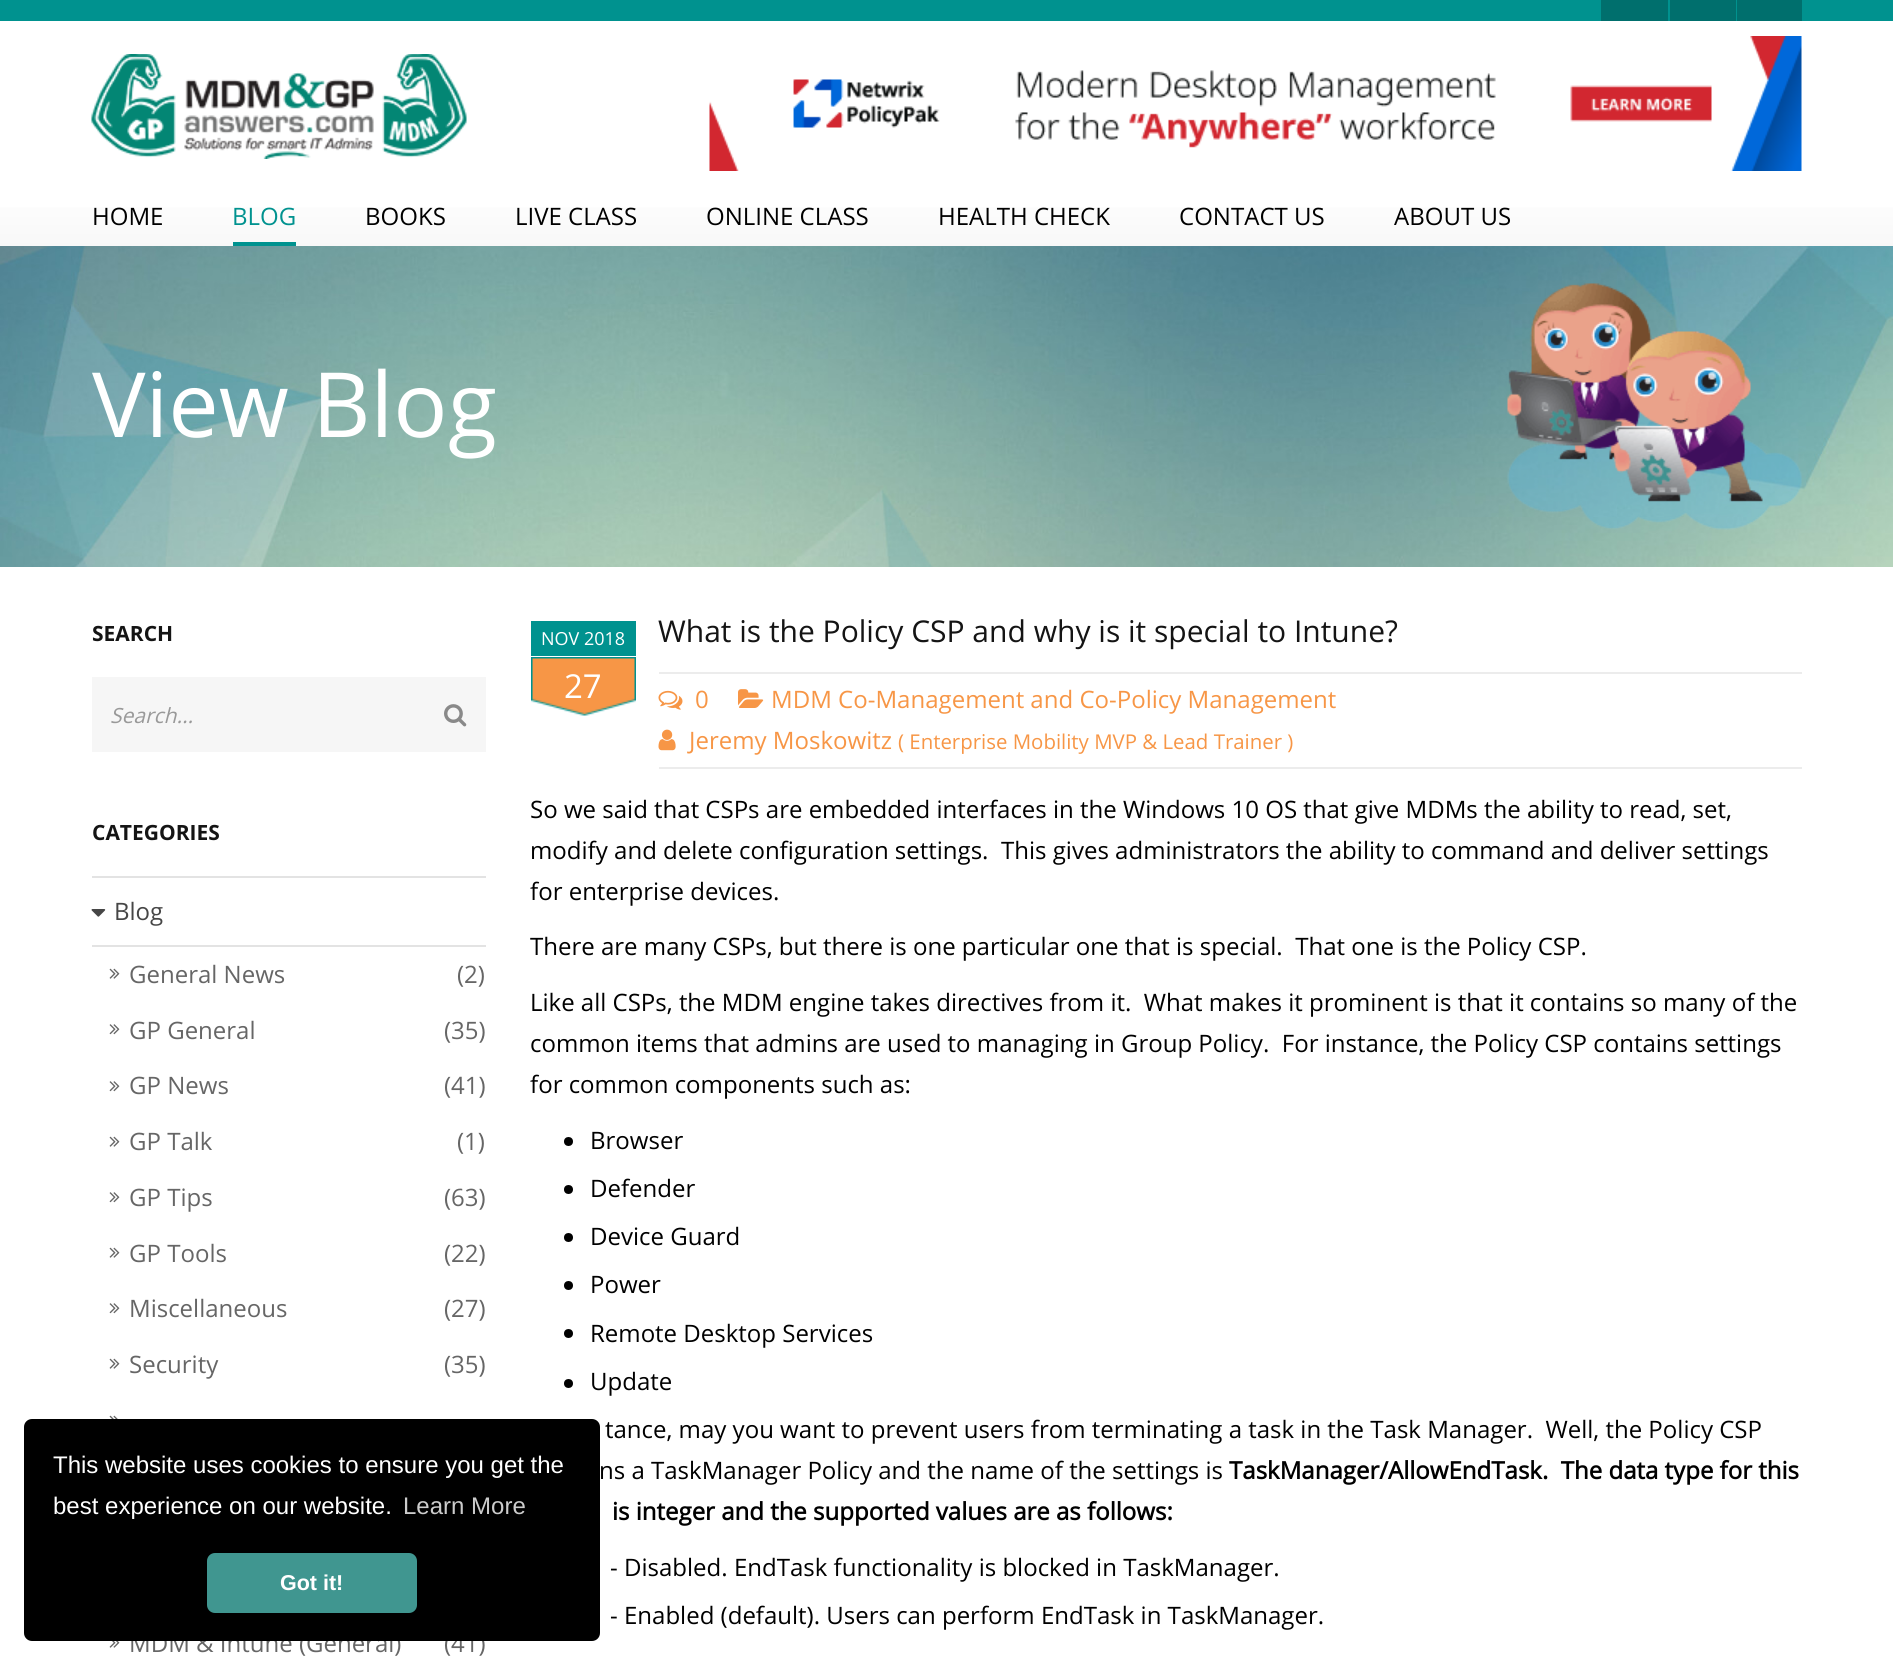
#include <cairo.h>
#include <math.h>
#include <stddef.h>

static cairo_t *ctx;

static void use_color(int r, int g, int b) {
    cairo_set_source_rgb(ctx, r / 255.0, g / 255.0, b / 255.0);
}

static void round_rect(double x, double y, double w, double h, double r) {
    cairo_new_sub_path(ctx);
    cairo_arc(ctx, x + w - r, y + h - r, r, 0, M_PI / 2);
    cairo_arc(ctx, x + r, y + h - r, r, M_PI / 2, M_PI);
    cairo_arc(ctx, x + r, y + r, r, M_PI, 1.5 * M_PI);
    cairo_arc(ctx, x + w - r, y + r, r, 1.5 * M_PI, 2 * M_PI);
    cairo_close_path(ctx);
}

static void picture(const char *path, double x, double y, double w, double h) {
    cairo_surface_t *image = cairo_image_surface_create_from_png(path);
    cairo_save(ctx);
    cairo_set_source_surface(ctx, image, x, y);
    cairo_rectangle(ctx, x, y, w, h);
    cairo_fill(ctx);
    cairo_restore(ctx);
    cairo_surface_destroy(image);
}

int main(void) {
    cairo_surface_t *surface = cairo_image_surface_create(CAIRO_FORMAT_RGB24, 1893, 1665);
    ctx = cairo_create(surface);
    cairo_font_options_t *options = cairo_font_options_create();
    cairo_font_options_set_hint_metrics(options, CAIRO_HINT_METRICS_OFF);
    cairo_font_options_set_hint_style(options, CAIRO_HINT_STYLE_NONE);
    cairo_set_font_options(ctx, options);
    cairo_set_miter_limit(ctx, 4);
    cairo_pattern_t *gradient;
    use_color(255, 255, 255);
    cairo_paint(ctx);
    use_color(0, 146, 143);
    cairo_rectangle(ctx, 0, 0, 1893, 21);
    cairo_fill(ctx);
    use_color(0, 111, 109);
    cairo_rectangle(ctx, 1601, 0, 67, 21);
    cairo_fill(ctx);
    cairo_rectangle(ctx, 1670, 0, 66, 21);
    cairo_fill(ctx);
    cairo_rectangle(ctx, 1737, 0, 65, 21);
    cairo_fill(ctx);
    picture("img1.png", 91, 54, 376, 105);
    picture("img2.png", 709, 36, 1093, 135);
    gradient = cairo_pattern_create_linear(947, 186, 947, 246);
    cairo_pattern_add_color_stop_rgba(gradient, 0, 1, 1, 1, 1);
    cairo_pattern_add_color_stop_rgba(gradient, 1, 0.973, 0.973, 0.973, 1);
    cairo_set_source(ctx, gradient);
    cairo_pattern_destroy(gradient);
    cairo_rectangle(ctx, 0, 207, 1893, 39);
    cairo_fill(ctx);
    cairo_select_font_face(ctx, "Open Sans", CAIRO_FONT_SLANT_NORMAL, CAIRO_FONT_WEIGHT_NORMAL);
    cairo_set_font_size(ctx, 24);
    use_color(0, 0, 0);
    cairo_move_to(ctx, 92, 225);
    cairo_show_text(ctx, "HOME");
    use_color(0, 146, 143);
    cairo_move_to(ctx, 232, 225);
    cairo_show_text(ctx, "BLOG");
    cairo_rectangle(ctx, 233, 242, 63, 4);
    cairo_fill(ctx);
    use_color(0, 0, 0);
    cairo_move_to(ctx, 365, 225);
    cairo_show_text(ctx, "BOOKS");
    cairo_move_to(ctx, 515, 225);
    cairo_show_text(ctx, "LIVE CLASS");
    cairo_move_to(ctx, 706, 225);
    cairo_show_text(ctx, "ONLINE CLASS");
    cairo_move_to(ctx, 938, 225);
    cairo_show_text(ctx, "HEALTH CHECK");
    cairo_move_to(ctx, 1179, 225);
    cairo_show_text(ctx, "CONTACT US");
    cairo_move_to(ctx, 1394, 225);
    cairo_show_text(ctx, "ABOUT US");
    picture("img3.png", 0, 246, 1893, 321);
    cairo_set_font_size(ctx, 90);
    use_color(255, 255, 255);
    cairo_move_to(ctx, 92, 437);
    cairo_show_text(ctx, "View Blog");
    picture("img4.png", 1507, 283, 295, 247);
    cairo_select_font_face(ctx, "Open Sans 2", CAIRO_FONT_SLANT_NORMAL, CAIRO_FONT_WEIGHT_BOLD);
    cairo_set_font_size(ctx, 21);
    use_color(20, 20, 20);
    cairo_move_to(ctx, 92, 641);
    cairo_show_text(ctx, "SEARCH");
    use_color(246, 246, 246);
    cairo_rectangle(ctx, 92, 677, 394, 75);
    cairo_fill(ctx);
    cairo_select_font_face(ctx, "Open Sans", CAIRO_FONT_SLANT_ITALIC, CAIRO_FONT_WEIGHT_NORMAL);
    use_color(153, 153, 153);
    cairo_move_to(ctx, 110, 723);
    cairo_show_text(ctx, "Search...");
    picture("img5.png", 444, 704, 23, 23);
    cairo_select_font_face(ctx, "Open Sans 2", CAIRO_FONT_SLANT_NORMAL, CAIRO_FONT_WEIGHT_BOLD);
    use_color(20, 20, 20);
    cairo_move_to(ctx, 92, 840);
    cairo_show_text(ctx, "CATEGORIES");
    use_color(227, 227, 227);
    cairo_rectangle(ctx, 92, 876, 394, 2);
    cairo_fill(ctx);
    picture("img6.png", 91, 909, 15, 8);
    cairo_select_font_face(ctx, "Open Sans", CAIRO_FONT_SLANT_NORMAL, CAIRO_FONT_WEIGHT_NORMAL);
    cairo_set_font_size(ctx, 24);
    use_color(70, 70, 70);
    cairo_move_to(ctx, 114, 920);
    cairo_show_text(ctx, "Blog");
    use_color(227, 227, 227);
    cairo_rectangle(ctx, 92, 945, 394, 2);
    cairo_fill(ctx);
    picture("img7.png", 109, 968, 11, 11);
    use_color(102, 102, 102);
    cairo_move_to(ctx, 129, 983);
    cairo_show_text(ctx, "General News");
    cairo_move_to(ctx, 457, 983);
    cairo_show_text(ctx, "(2)");
    picture("img8.png", 109, 1024, 11, 11);
    cairo_move_to(ctx, 129, 1039);
    cairo_show_text(ctx, "GP General");
    cairo_move_to(ctx, 444, 1039);
    cairo_show_text(ctx, "(35)");
    picture("img8.png", 109, 1081, 11, 11);
    cairo_move_to(ctx, 129, 1094);
    cairo_show_text(ctx, "GP News");
    cairo_move_to(ctx, 444, 1094);
    cairo_show_text(ctx, "(41)");
    picture("img7.png", 109, 1136, 11, 11);
    cairo_move_to(ctx, 129, 1150);
    cairo_show_text(ctx, "GP Talk");
    cairo_move_to(ctx, 457, 1150);
    cairo_show_text(ctx, "(1)");
    picture("img8.png", 109, 1192, 11, 11);
    cairo_move_to(ctx, 129, 1206);
    cairo_show_text(ctx, "GP Tips");
    cairo_move_to(ctx, 444, 1206);
    cairo_show_text(ctx, "(63)");
    picture("img7.png", 109, 1247, 11, 11);
    cairo_move_to(ctx, 129, 1262);
    cairo_show_text(ctx, "GP Tools");
    cairo_move_to(ctx, 444, 1262);
    cairo_show_text(ctx, "(22)");
    picture("img8.png", 109, 1303, 11, 11);
    cairo_move_to(ctx, 129, 1317);
    cairo_show_text(ctx, "Miscellaneous");
    cairo_move_to(ctx, 444, 1317);
    cairo_show_text(ctx, "(27)");
    picture("img7.png", 109, 1358, 11, 11);
    cairo_move_to(ctx, 129, 1373);
    cairo_show_text(ctx, "Security");
    cairo_move_to(ctx, 444, 1373);
    cairo_show_text(ctx, "(35)");
    picture("img9.png", 109, 1415, 9, 4);
    picture("img10.png", 109, 1641, 11, 7);
    cairo_move_to(ctx, 129, 1652);
    cairo_show_text(ctx, "MDM & Intune (General)");
    cairo_move_to(ctx, 444, 1652);
    cairo_show_text(ctx, "(41)");
    use_color(0, 146, 143);
    cairo_rectangle(ctx, 531, 621, 105, 35);
    cairo_fill(ctx);
    cairo_set_font_size(ctx, 18);
    use_color(255, 255, 255);
    cairo_move_to(ctx, 541, 645);
    cairo_show_text(ctx, "NOV 2018");
    picture("img11.png", 531, 657, 105, 59);
    cairo_set_font_size(ctx, 33);
    cairo_move_to(ctx, 564, 698);
    cairo_show_text(ctx, "27");
    cairo_set_font_size(ctx, 30);
    use_color(20, 20, 20);
    cairo_move_to(ctx, 658, 642);
    cairo_show_text(ctx, "What is the Policy CSP and why is it special to Intune?");
    use_color(236, 236, 236);
    cairo_rectangle(ctx, 659, 672, 1143, 2);
    cairo_fill(ctx);
    cairo_rectangle(ctx, 659, 767, 1143, 2);
    cairo_fill(ctx);
    picture("img12.png", 658, 690, 25, 20);
    cairo_set_font_size(ctx, 24);
    use_color(247, 150, 70);
    cairo_move_to(ctx, 695, 708);
    cairo_show_text(ctx, "0");
    picture("img13.png", 738, 689, 26, 19);
    cairo_move_to(ctx, 771, 708);
    cairo_show_text(ctx, "MDM Co-Management and Co-Policy Management");
    picture("img14.png", 658, 729, 18, 22);
    cairo_move_to(ctx, 689, 749);
    cairo_show_text(ctx, "Jeremy Moskowitz");
    cairo_set_font_size(ctx, 20.4);
    cairo_move_to(ctx, 898, 749);
    cairo_show_text(ctx, "( Enterprise Mobility MVP & Lead Trainer )");
    cairo_set_font_size(ctx, 24);
    use_color(0, 0, 0);
    cairo_move_to(ctx, 530, 818);
    cairo_show_text(ctx, "So we said that CSPs are embedded interfaces in the Windows 10 OS that give MDMs the ability to read, set,");
    cairo_move_to(ctx, 530, 859);
    cairo_show_text(ctx, "modify and delete configuration settings.  This gives administrators the ability to command and deliver settings");
    cairo_move_to(ctx, 530, 900);
    cairo_show_text(ctx, "for enterprise devices.");
    cairo_move_to(ctx, 530, 955);
    cairo_show_text(ctx, "There are many CSPs, but there is one particular one that is special.  That one is the Policy CSP.");
    cairo_move_to(ctx, 530, 1011);
    cairo_show_text(ctx, "Like all CSPs, the MDM engine takes directives from it.  What makes it prominent is that it contains so many of the");
    cairo_move_to(ctx, 530, 1052);
    cairo_show_text(ctx, "common items that admins are used to managing in Group Policy.  For instance, the Policy CSP contains settings");
    cairo_move_to(ctx, 530, 1093);
    cairo_show_text(ctx, "for common components such as:");
    cairo_new_path(ctx);
    cairo_arc(ctx, 568.5, 1141.5, 4.5, 0, 2 * M_PI);
    cairo_fill(ctx);
    cairo_move_to(ctx, 590, 1149);
    cairo_show_text(ctx, "Browser");
    cairo_new_path(ctx);
    cairo_arc(ctx, 568.5, 1189.5, 4.5, 0, 2 * M_PI);
    cairo_fill(ctx);
    cairo_move_to(ctx, 590, 1197);
    cairo_show_text(ctx, "Defender");
    cairo_new_path(ctx);
    cairo_arc(ctx, 568.5, 1237.5, 4.5, 0, 2 * M_PI);
    cairo_fill(ctx);
    cairo_move_to(ctx, 590, 1245);
    cairo_show_text(ctx, "Device Guard");
    cairo_new_path(ctx);
    cairo_arc(ctx, 568.5, 1285.5, 4.5, 0, 2 * M_PI);
    cairo_fill(ctx);
    cairo_move_to(ctx, 590, 1293);
    cairo_show_text(ctx, "Power");
    cairo_new_path(ctx);
    cairo_arc(ctx, 568.5, 1333.5, 4.5, 0, 2 * M_PI);
    cairo_fill(ctx);
    cairo_move_to(ctx, 590, 1342);
    cairo_show_text(ctx, "Remote Desktop Services");
    cairo_new_path(ctx);
    cairo_arc(ctx, 568.5, 1383.5, 4.5, 0, 2 * M_PI);
    cairo_fill(ctx);
    cairo_move_to(ctx, 590, 1390);
    cairo_show_text(ctx, "Update");
    cairo_move_to(ctx, 605, 1438);
    cairo_show_text(ctx, "tance, may you want to prevent users from terminating a task in the Task Manager.  Well, the Policy CSP");
    cairo_move_to(ctx, 599, 1479);
    cairo_show_text(ctx, "ns a TaskManager Policy and the name of the settings is");
    cairo_select_font_face(ctx, "Open Sans", CAIRO_FONT_SLANT_NORMAL, CAIRO_FONT_WEIGHT_BOLD);
    cairo_move_to(ctx, 1229, 1479);
    cairo_show_text(ctx, "TaskManager/AllowEndTask.  The data type for this");
    cairo_move_to(ctx, 612, 1520);
    cairo_show_text(ctx, "is integer and the supported values are as follows:");
    cairo_select_font_face(ctx, "Open Sans", CAIRO_FONT_SLANT_NORMAL, CAIRO_FONT_WEIGHT_NORMAL);
    cairo_move_to(ctx, 610, 1576);
    cairo_show_text(ctx, "- Disabled. EndTask functionality is blocked in TaskManager.");
    cairo_move_to(ctx, 610, 1624);
    cairo_show_text(ctx, "- Enabled (default). Users can perform EndTask in TaskManager.");
    round_rect(24, 1419, 576, 222, 8);
    cairo_fill(ctx);
    cairo_select_font_face(ctx, "Liberation Sans", CAIRO_FONT_SLANT_NORMAL, CAIRO_FONT_WEIGHT_NORMAL);
    use_color(255, 255, 255);
    cairo_move_to(ctx, 53, 1473);
    cairo_show_text(ctx, "This website uses cookies to ensure you get the");
    cairo_move_to(ctx, 53, 1514);
    cairo_show_text(ctx, "best experience on our website.");
    use_color(204, 204, 204);
    cairo_move_to(ctx, 403, 1514);
    cairo_show_text(ctx, "Learn More");
    use_color(64, 150, 144);
    round_rect(207, 1553, 210, 60, 8);
    cairo_fill(ctx);
    cairo_select_font_face(ctx, "Liberation Sans", CAIRO_FONT_SLANT_NORMAL, CAIRO_FONT_WEIGHT_BOLD);
    cairo_set_font_size(ctx, 21.5);
    use_color(255, 255, 255);
    cairo_move_to(ctx, 280, 1590);
    cairo_show_text(ctx, "Got it!");
    cairo_surface_write_to_png(surface, "result.png");
    cairo_font_options_destroy(options);
    cairo_destroy(ctx);
    cairo_surface_destroy(surface);
    return 0;
}
